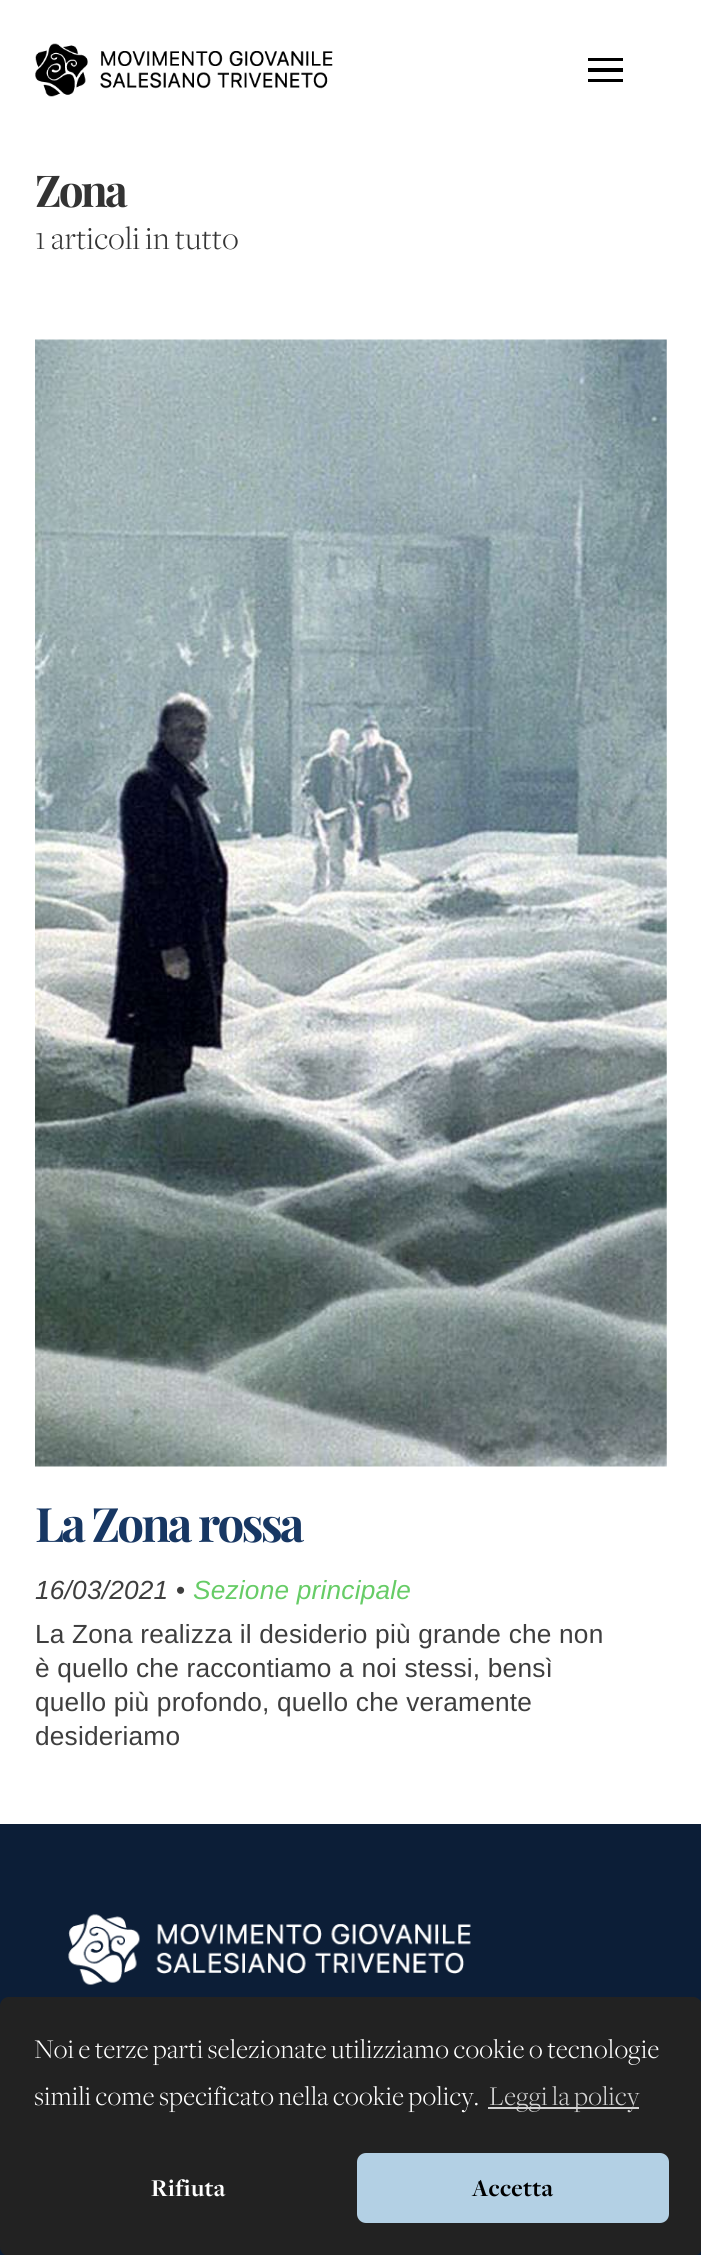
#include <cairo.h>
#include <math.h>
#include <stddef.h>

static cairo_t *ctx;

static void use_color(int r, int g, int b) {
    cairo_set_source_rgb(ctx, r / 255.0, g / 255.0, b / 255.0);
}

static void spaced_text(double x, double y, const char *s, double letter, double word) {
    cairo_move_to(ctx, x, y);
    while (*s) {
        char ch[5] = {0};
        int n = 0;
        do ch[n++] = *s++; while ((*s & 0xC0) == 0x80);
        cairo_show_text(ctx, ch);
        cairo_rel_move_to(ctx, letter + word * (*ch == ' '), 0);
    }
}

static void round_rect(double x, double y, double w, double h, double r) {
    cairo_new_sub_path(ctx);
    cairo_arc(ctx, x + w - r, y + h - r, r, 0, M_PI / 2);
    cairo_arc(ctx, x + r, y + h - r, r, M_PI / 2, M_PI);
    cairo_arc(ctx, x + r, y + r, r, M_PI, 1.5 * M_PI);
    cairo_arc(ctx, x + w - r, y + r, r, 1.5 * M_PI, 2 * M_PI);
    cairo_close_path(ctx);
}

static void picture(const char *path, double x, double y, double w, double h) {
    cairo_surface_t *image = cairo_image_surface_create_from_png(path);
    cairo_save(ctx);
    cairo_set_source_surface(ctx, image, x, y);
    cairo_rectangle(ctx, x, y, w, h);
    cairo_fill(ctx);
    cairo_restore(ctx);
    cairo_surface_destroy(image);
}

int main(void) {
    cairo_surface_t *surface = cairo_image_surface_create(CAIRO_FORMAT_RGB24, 701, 2255);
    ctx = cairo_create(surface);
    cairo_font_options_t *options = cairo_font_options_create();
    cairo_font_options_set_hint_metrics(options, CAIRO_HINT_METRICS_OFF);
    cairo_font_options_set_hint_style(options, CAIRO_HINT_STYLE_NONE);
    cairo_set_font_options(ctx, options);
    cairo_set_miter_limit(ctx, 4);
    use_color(255, 255, 255);
    cairo_paint(ctx);
    picture("img1.png", 35, 43, 298, 54);
    use_color(0, 0, 0);
    cairo_rectangle(ctx, 588, 58, 35, 3);
    cairo_fill(ctx);
    cairo_rectangle(ctx, 588, 68, 35, 4);
    cairo_fill(ctx);
    cairo_rectangle(ctx, 588, 79, 35, 3);
    cairo_fill(ctx);
    cairo_select_font_face(ctx, "Playfair Display", CAIRO_FONT_SLANT_NORMAL, CAIRO_FONT_WEIGHT_BOLD);
    cairo_set_font_size(ctx, 44);
    use_color(51, 51, 51);
    spaced_text(35, 207, "Zona", -2.75, 0);
    cairo_select_font_face(ctx, "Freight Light", CAIRO_FONT_SLANT_NORMAL, CAIRO_FONT_WEIGHT_NORMAL);
    cairo_set_font_size(ctx, 33.5);
    spaced_text(35, 249, "1 articoli in tutto", 0.35, 0);
    picture("img2.png", 35, 339, 632, 1128);
    cairo_select_font_face(ctx, "Playfair Display", CAIRO_FONT_SLANT_NORMAL, CAIRO_FONT_WEIGHT_BOLD);
    cairo_set_font_size(ctx, 47.5);
    use_color(23, 55, 99);
    spaced_text(35, 1542, "La Zona rossa", -2.75, 0);
    cairo_select_font_face(ctx, "Liberation Sans", CAIRO_FONT_SLANT_ITALIC, CAIRO_FONT_WEIGHT_NORMAL);
    cairo_set_font_size(ctx, 26.25);
    use_color(62, 62, 62);
    spaced_text(35, 1599, "16/03/2021 •", 0.2, 0);
    use_color(102, 204, 102);
    spaced_text(193, 1599, "Sezione principale", 0.2, 0);
    cairo_select_font_face(ctx, "Liberation Sans", CAIRO_FONT_SLANT_NORMAL, CAIRO_FONT_WEIGHT_NORMAL);
    use_color(62, 62, 62);
    spaced_text(35, 1643, "La Zona realizza il desiderio più grande che non", 0.2, 0);
    spaced_text(35, 1677, "è quello che raccontiamo a noi stessi, bensì", 0.2, 0);
    spaced_text(35, 1711, "quello più profondo, quello che veramente", 0.2, 0);
    spaced_text(35, 1745, "desideriamo", 0.2, 0);
    use_color(12, 30, 55);
    cairo_rectangle(ctx, 0, 1824, 701, 431);
    cairo_fill(ctx);
    picture("img3.png", 68, 1914, 403, 71);
    use_color(34, 34, 34);
    round_rect(0, 1997, 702, 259, 9);
    cairo_fill(ctx);
    cairo_select_font_face(ctx, "Freight Light", CAIRO_FONT_SLANT_NORMAL, CAIRO_FONT_WEIGHT_NORMAL);
    cairo_set_font_size(ctx, 28);
    use_color(255, 255, 255);
    spaced_text(34, 2058, "Noi e terze parti selezionate utilizziamo cookie o tecnologie", 0.35, 0);
    spaced_text(34, 2105, "simili come specificato nella cookie policy.", 0.35, 0);
    use_color(211, 211, 211);
    cairo_rectangle(ctx, 488, 2107, 151, 2);
    cairo_fill(ctx);
    spaced_text(489, 2105, "Leggi la policy", 0.35, 0);
    cairo_select_font_face(ctx, "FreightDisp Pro", CAIRO_FONT_SLANT_NORMAL, CAIRO_FONT_WEIGHT_BOLD);
    cairo_set_font_size(ctx, 25);
    use_color(255, 255, 255);
    spaced_text(151, 2196, "Rifiuta", 0.35, 0);
    use_color(179, 208, 228);
    round_rect(357, 2153, 312, 70, 9);
    cairo_fill(ctx);
    use_color(0, 0, 0);
    spaced_text(472, 2196, "Accetta", 0.35, 0);
    cairo_surface_write_to_png(surface, "result.png");
    cairo_font_options_destroy(options);
    cairo_destroy(ctx);
    cairo_surface_destroy(surface);
    return 0;
}
